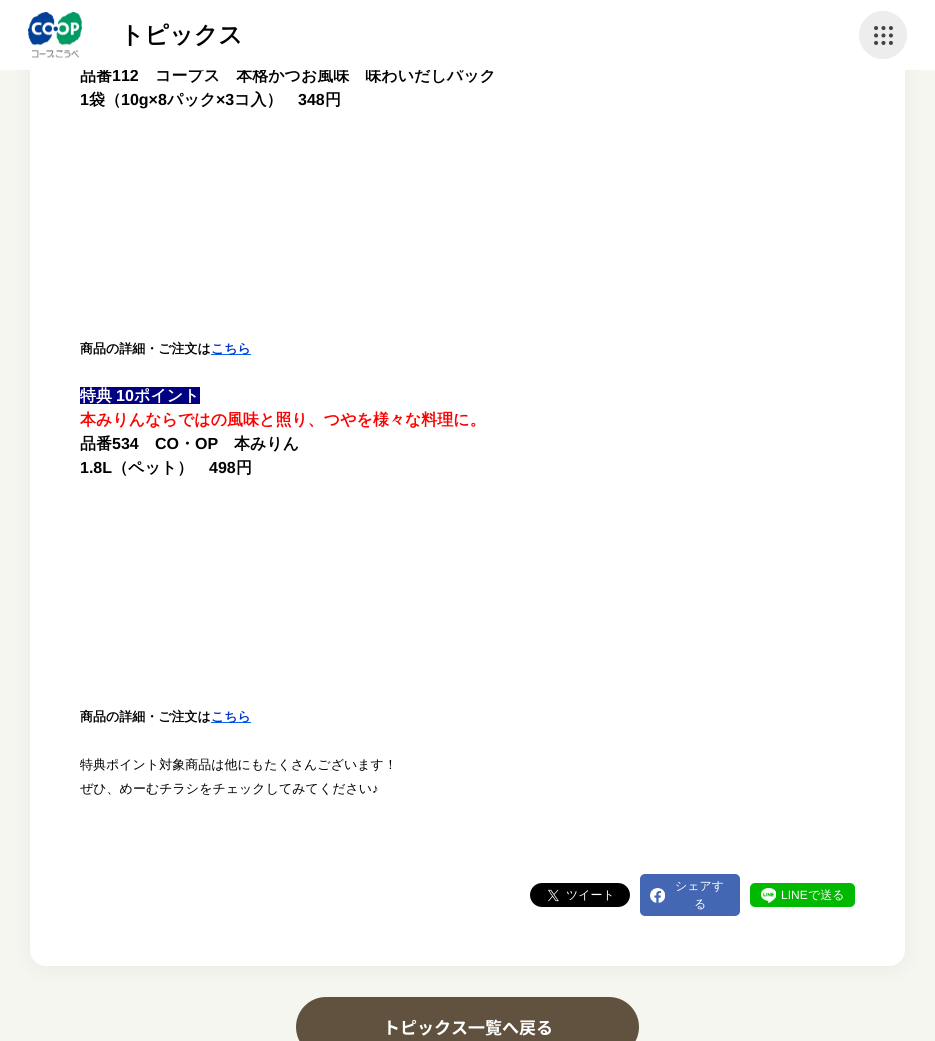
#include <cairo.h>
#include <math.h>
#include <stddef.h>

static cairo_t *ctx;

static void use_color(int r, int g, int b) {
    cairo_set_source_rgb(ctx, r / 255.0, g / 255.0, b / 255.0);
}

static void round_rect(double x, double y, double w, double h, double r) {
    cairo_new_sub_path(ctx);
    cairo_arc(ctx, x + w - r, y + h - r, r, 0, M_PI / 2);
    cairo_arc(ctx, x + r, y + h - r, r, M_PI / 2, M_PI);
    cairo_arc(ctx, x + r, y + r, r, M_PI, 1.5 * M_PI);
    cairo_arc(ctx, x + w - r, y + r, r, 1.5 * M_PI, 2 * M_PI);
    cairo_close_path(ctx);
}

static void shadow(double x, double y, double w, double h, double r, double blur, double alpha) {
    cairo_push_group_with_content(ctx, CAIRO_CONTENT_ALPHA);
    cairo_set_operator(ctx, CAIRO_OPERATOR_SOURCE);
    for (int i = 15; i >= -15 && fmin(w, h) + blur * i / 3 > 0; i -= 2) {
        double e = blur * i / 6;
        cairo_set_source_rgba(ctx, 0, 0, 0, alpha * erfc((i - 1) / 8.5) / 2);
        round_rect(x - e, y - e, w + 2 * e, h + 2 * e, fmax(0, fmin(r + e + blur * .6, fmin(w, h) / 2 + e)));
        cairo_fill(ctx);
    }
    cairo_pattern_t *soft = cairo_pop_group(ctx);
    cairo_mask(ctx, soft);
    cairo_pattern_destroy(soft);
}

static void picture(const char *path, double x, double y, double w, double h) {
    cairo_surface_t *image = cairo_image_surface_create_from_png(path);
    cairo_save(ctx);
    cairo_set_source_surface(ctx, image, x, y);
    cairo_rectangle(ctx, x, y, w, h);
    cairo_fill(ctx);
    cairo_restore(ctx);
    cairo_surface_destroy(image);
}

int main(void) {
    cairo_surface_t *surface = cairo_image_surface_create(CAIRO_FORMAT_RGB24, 935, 1041);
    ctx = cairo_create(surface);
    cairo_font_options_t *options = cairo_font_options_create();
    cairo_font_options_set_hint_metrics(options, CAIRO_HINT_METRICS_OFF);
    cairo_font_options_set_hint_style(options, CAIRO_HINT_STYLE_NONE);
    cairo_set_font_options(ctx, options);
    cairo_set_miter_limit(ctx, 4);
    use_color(246, 246, 241);
    cairo_paint(ctx);
    use_color(0, 0, 0);
    shadow(30, -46, 875, 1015, 16, 10, 0.05);
    use_color(255, 255, 255);
    round_rect(30, -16, 875, 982, 16);
    cairo_fill(ctx);
    cairo_select_font_face(ctx, "WenQuanYi Zen Hei", CAIRO_FONT_SLANT_NORMAL, CAIRO_FONT_WEIGHT_BOLD);
    cairo_set_font_size(ctx, 16);
    use_color(0, 0, 0);
    cairo_move_to(ctx, 80, 81);
    cairo_show_text(ctx, "品番");
    cairo_select_font_face(ctx, "Liberation Sans", CAIRO_FONT_SLANT_NORMAL, CAIRO_FONT_WEIGHT_BOLD);
    cairo_move_to(ctx, 112, 81);
    cairo_show_text(ctx, "112");
    cairo_select_font_face(ctx, "WenQuanYi Zen Hei", CAIRO_FONT_SLANT_NORMAL, CAIRO_FONT_WEIGHT_BOLD);
    cairo_move_to(ctx, 155, 81);
    cairo_show_text(ctx, "コープス　本格かつお風味　味わいだしパック");
    use_color(255, 255, 255);
    cairo_rectangle(ctx, 0, 0, 935, 70);
    cairo_fill(ctx);
    picture("img1.png", 28, 12, 54, 46);
    cairo_set_font_size(ctx, 24);
    use_color(0, 0, 0);
    cairo_move_to(ctx, 120, 43);
    cairo_show_text(ctx, "トピックス");
    use_color(237, 237, 237);
    cairo_new_path(ctx);
    cairo_arc(ctx, 883, 35, 24, 0, 2 * M_PI);
    cairo_fill(ctx);
    picture("img2.png", 874, 26, 19, 19);
    cairo_select_font_face(ctx, "Liberation Sans", CAIRO_FONT_SLANT_NORMAL, CAIRO_FONT_WEIGHT_BOLD);
    cairo_set_font_size(ctx, 16);
    use_color(0, 0, 0);
    cairo_move_to(ctx, 80, 105);
    cairo_show_text(ctx, "1");
    cairo_select_font_face(ctx, "WenQuanYi Zen Hei", CAIRO_FONT_SLANT_NORMAL, CAIRO_FONT_WEIGHT_BOLD);
    cairo_move_to(ctx, 89, 105);
    cairo_show_text(ctx, "袋（");
    cairo_select_font_face(ctx, "Liberation Sans", CAIRO_FONT_SLANT_NORMAL, CAIRO_FONT_WEIGHT_BOLD);
    cairo_move_to(ctx, 121, 105);
    cairo_show_text(ctx, "10g×8");
    cairo_select_font_face(ctx, "WenQuanYi Zen Hei", CAIRO_FONT_SLANT_NORMAL, CAIRO_FONT_WEIGHT_BOLD);
    cairo_move_to(ctx, 167, 105);
    cairo_show_text(ctx, "パック");
    cairo_select_font_face(ctx, "Liberation Sans", CAIRO_FONT_SLANT_NORMAL, CAIRO_FONT_WEIGHT_BOLD);
    cairo_move_to(ctx, 216, 105);
    cairo_show_text(ctx, "×3");
    cairo_select_font_face(ctx, "WenQuanYi Zen Hei", CAIRO_FONT_SLANT_NORMAL, CAIRO_FONT_WEIGHT_BOLD);
    cairo_move_to(ctx, 234, 105);
    cairo_show_text(ctx, "コ入）");
    cairo_select_font_face(ctx, "Liberation Sans", CAIRO_FONT_SLANT_NORMAL, CAIRO_FONT_WEIGHT_BOLD);
    cairo_move_to(ctx, 298, 105);
    cairo_show_text(ctx, "348");
    cairo_select_font_face(ctx, "WenQuanYi Zen Hei", CAIRO_FONT_SLANT_NORMAL, CAIRO_FONT_WEIGHT_BOLD);
    cairo_move_to(ctx, 325, 105);
    cairo_show_text(ctx, "円");
    cairo_set_font_size(ctx, 13);
    cairo_move_to(ctx, 80, 353);
    cairo_show_text(ctx, "商品の詳細・ご注文は");
    use_color(0, 104, 247);
    cairo_rectangle(ctx, 211, 354, 40, 1);
    cairo_fill(ctx);
    use_color(0, 51, 204);
    cairo_move_to(ctx, 211, 353);
    cairo_show_text(ctx, "こちら");
    use_color(0, 0, 128);
    cairo_rectangle(ctx, 80, 387, 120, 17);
    cairo_fill(ctx);
    cairo_set_font_size(ctx, 16);
    use_color(255, 255, 255);
    cairo_move_to(ctx, 80, 401);
    cairo_show_text(ctx, "特典");
    cairo_select_font_face(ctx, "Liberation Sans", CAIRO_FONT_SLANT_NORMAL, CAIRO_FONT_WEIGHT_BOLD);
    cairo_move_to(ctx, 116, 401);
    cairo_show_text(ctx, "10");
    cairo_select_font_face(ctx, "WenQuanYi Zen Hei", CAIRO_FONT_SLANT_NORMAL, CAIRO_FONT_WEIGHT_BOLD);
    cairo_move_to(ctx, 134, 401);
    cairo_show_text(ctx, "ポイント");
    use_color(255, 0, 0);
    cairo_move_to(ctx, 80, 425);
    cairo_show_text(ctx, "本みりんならではの風味と照り、つやを様々な料理に。");
    use_color(0, 0, 0);
    cairo_move_to(ctx, 80, 449);
    cairo_show_text(ctx, "品番");
    cairo_select_font_face(ctx, "Liberation Sans", CAIRO_FONT_SLANT_NORMAL, CAIRO_FONT_WEIGHT_BOLD);
    cairo_move_to(ctx, 112, 449);
    cairo_show_text(ctx, "534");
    cairo_move_to(ctx, 155, 449);
    cairo_show_text(ctx, "CO");
    cairo_select_font_face(ctx, "WenQuanYi Zen Hei", CAIRO_FONT_SLANT_NORMAL, CAIRO_FONT_WEIGHT_BOLD);
    cairo_move_to(ctx, 179, 449);
    cairo_show_text(ctx, "・");
    cairo_select_font_face(ctx, "Liberation Sans", CAIRO_FONT_SLANT_NORMAL, CAIRO_FONT_WEIGHT_BOLD);
    cairo_move_to(ctx, 195, 449);
    cairo_show_text(ctx, "OP");
    cairo_select_font_face(ctx, "WenQuanYi Zen Hei", CAIRO_FONT_SLANT_NORMAL, CAIRO_FONT_WEIGHT_BOLD);
    cairo_move_to(ctx, 234, 449);
    cairo_show_text(ctx, "本みりん");
    cairo_select_font_face(ctx, "Liberation Sans", CAIRO_FONT_SLANT_NORMAL, CAIRO_FONT_WEIGHT_BOLD);
    cairo_move_to(ctx, 80, 473);
    cairo_show_text(ctx, "1.8L");
    cairo_select_font_face(ctx, "WenQuanYi Zen Hei", CAIRO_FONT_SLANT_NORMAL, CAIRO_FONT_WEIGHT_BOLD);
    cairo_move_to(ctx, 112, 473);
    cairo_show_text(ctx, "（ペット）");
    cairo_select_font_face(ctx, "Liberation Sans", CAIRO_FONT_SLANT_NORMAL, CAIRO_FONT_WEIGHT_BOLD);
    cairo_move_to(ctx, 209, 473);
    cairo_show_text(ctx, "498");
    cairo_select_font_face(ctx, "WenQuanYi Zen Hei", CAIRO_FONT_SLANT_NORMAL, CAIRO_FONT_WEIGHT_BOLD);
    cairo_move_to(ctx, 236, 473);
    cairo_show_text(ctx, "円");
    cairo_set_font_size(ctx, 13);
    cairo_move_to(ctx, 80, 721);
    cairo_show_text(ctx, "商品の詳細・ご注文は");
    use_color(0, 104, 247);
    cairo_rectangle(ctx, 211, 722, 40, 1);
    cairo_fill(ctx);
    use_color(0, 51, 204);
    cairo_move_to(ctx, 211, 721);
    cairo_show_text(ctx, "こちら");
    cairo_select_font_face(ctx, "WenQuanYi Zen Hei Medium", CAIRO_FONT_SLANT_NORMAL, CAIRO_FONT_WEIGHT_NORMAL);
    use_color(0, 0, 0);
    cairo_move_to(ctx, 80, 769);
    cairo_show_text(ctx, "特典ポイント対象商品は他にもたくさんございます！");
    cairo_move_to(ctx, 80, 793);
    cairo_show_text(ctx, "ぜひ、めーむチラシをチェックしてみてください");
    cairo_select_font_face(ctx, "Liberation Sans", CAIRO_FONT_SLANT_NORMAL, CAIRO_FONT_WEIGHT_NORMAL);
    cairo_move_to(ctx, 372, 793);
    cairo_show_text(ctx, "♪");
    round_rect(530, 883, 100, 24, 12);
    cairo_fill(ctx);
    picture("img3.png", 548, 889, 11, 13);
    cairo_select_font_face(ctx, "WenQuanYi Zen Hei Medium", CAIRO_FONT_SLANT_NORMAL, CAIRO_FONT_WEIGHT_NORMAL);
    cairo_set_font_size(ctx, 12);
    use_color(255, 255, 255);
    cairo_move_to(ctx, 566, 899);
    cairo_show_text(ctx, "ツイート");
    use_color(67, 103, 179);
    round_rect(640, 874, 100, 42, 5);
    cairo_fill(ctx);
    picture("img4.png", 650, 888, 15, 15);
    use_color(255, 255, 255);
    cairo_move_to(ctx, 675, 890);
    cairo_show_text(ctx, "シェアす");
    cairo_move_to(ctx, 694, 908);
    cairo_show_text(ctx, "る");
    use_color(0, 185, 0);
    round_rect(750, 883, 105, 24, 5);
    cairo_fill(ctx);
    picture("img5.png", 761, 888, 15, 15);
    cairo_select_font_face(ctx, "Liberation Sans", CAIRO_FONT_SLANT_NORMAL, CAIRO_FONT_WEIGHT_NORMAL);
    use_color(255, 255, 255);
    cairo_move_to(ctx, 781, 899);
    cairo_show_text(ctx, "LINE");
    cairo_select_font_face(ctx, "WenQuanYi Zen Hei Medium", CAIRO_FONT_SLANT_NORMAL, CAIRO_FONT_WEIGHT_NORMAL);
    cairo_move_to(ctx, 808, 899);
    cairo_show_text(ctx, "で送る");
    use_color(96, 82, 63);
    round_rect(297, 998, 341, 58, 29);
    cairo_fill_preserve(ctx);
    cairo_stroke(ctx);
    cairo_select_font_face(ctx, "Noto Sans JP", CAIRO_FONT_SLANT_NORMAL, CAIRO_FONT_WEIGHT_BOLD);
    cairo_set_font_size(ctx, 17);
    use_color(255, 255, 255);
    cairo_move_to(ctx, 383, 1034);
    cairo_show_text(ctx, "トピックス一覧へ戻る");
    cairo_surface_write_to_png(surface, "result.png");
    cairo_font_options_destroy(options);
    cairo_destroy(ctx);
    cairo_surface_destroy(surface);
    return 0;
}
